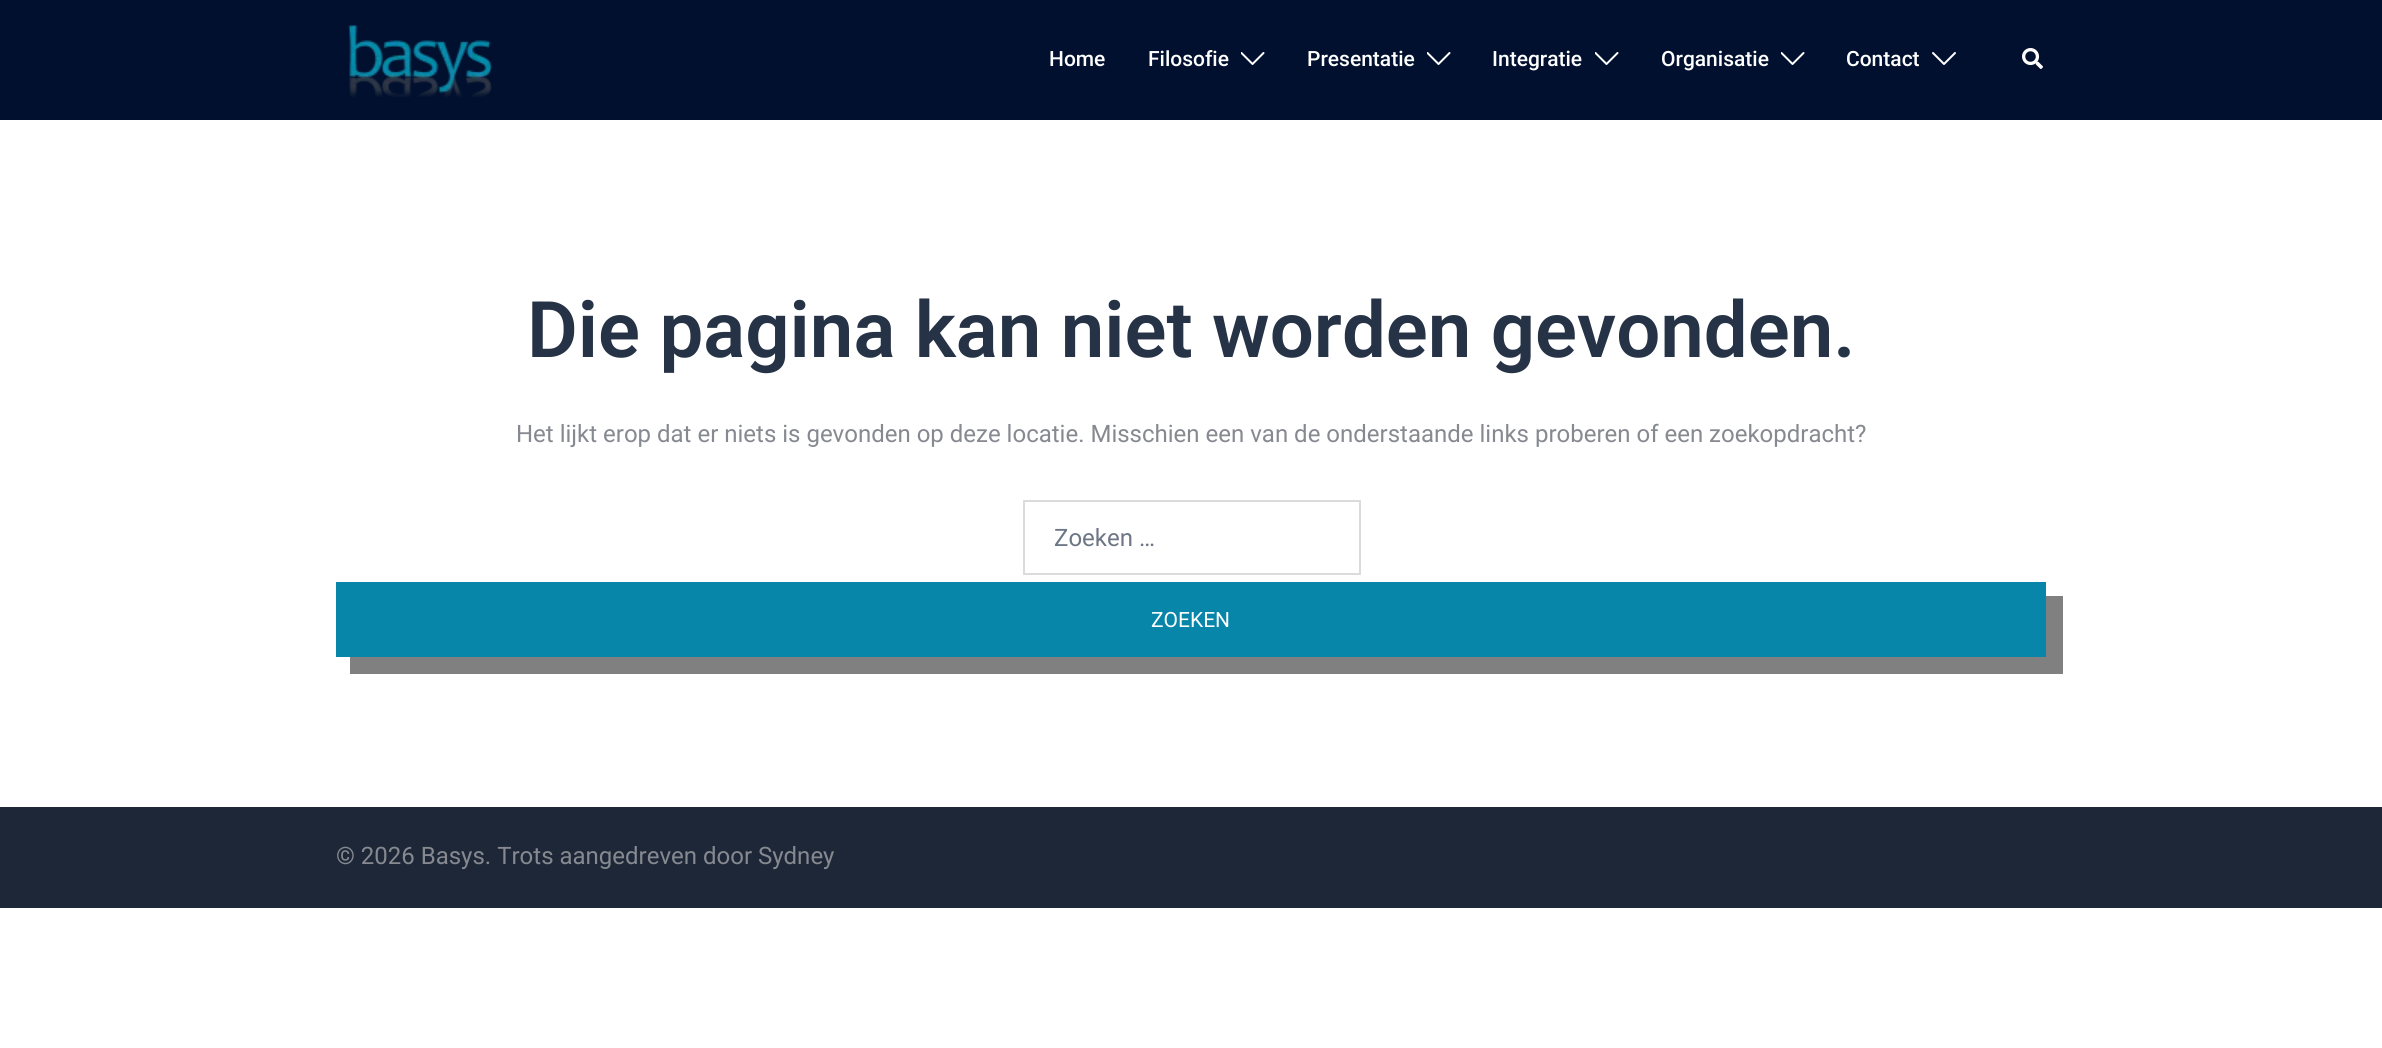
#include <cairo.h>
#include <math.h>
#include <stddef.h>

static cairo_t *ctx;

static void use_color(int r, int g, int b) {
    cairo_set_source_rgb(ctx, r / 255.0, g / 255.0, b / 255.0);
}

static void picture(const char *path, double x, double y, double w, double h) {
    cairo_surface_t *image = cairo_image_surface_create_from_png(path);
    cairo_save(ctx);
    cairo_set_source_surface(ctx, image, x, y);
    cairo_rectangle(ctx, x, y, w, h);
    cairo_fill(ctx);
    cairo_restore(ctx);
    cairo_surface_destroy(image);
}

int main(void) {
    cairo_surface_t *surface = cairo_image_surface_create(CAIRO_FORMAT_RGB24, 2382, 1048);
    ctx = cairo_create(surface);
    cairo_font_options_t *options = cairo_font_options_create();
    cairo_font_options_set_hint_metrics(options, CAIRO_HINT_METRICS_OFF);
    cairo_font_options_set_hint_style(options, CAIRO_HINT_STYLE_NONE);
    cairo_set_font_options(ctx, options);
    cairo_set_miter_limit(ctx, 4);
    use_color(255, 255, 255);
    cairo_paint(ctx);
    use_color(0, 16, 46);
    cairo_rectangle(ctx, 0, 0, 2382, 120);
    cairo_fill(ctx);
    picture("img1.png", 348, 25, 145, 72);
    cairo_select_font_face(ctx, "Roboto Medium", CAIRO_FONT_SLANT_NORMAL, CAIRO_FONT_WEIGHT_NORMAL);
    cairo_set_font_size(ctx, 21);
    use_color(255, 255, 255);
    cairo_move_to(ctx, 1049, 66);
    cairo_show_text(ctx, "Home");
    cairo_move_to(ctx, 1148, 66);
    cairo_show_text(ctx, "Filosofie");
    picture("img2.png", 1241, 52, 24, 13);
    cairo_move_to(ctx, 1307, 66);
    cairo_show_text(ctx, "Presentatie");
    picture("img2.png", 1427, 52, 24, 13);
    cairo_move_to(ctx, 1492, 66);
    cairo_show_text(ctx, "Integratie");
    picture("img2.png", 1595, 52, 24, 13);
    cairo_move_to(ctx, 1661, 66);
    cairo_show_text(ctx, "Organisatie");
    picture("img2.png", 1781, 52, 24, 13);
    cairo_move_to(ctx, 1846, 66);
    cairo_show_text(ctx, "Contact");
    picture("img3.png", 1932, 52, 24, 13);
    picture("img4.png", 2022, 48, 21, 21);
    cairo_select_font_face(ctx, "Roboto SemiBold", CAIRO_FONT_SLANT_NORMAL, CAIRO_FONT_WEIGHT_NORMAL);
    cairo_set_font_size(ctx, 78);
    use_color(38, 50, 70);
    cairo_move_to(ctx, 527, 357);
    cairo_show_text(ctx, "Die pagina kan niet worden gevonden.");
    cairo_select_font_face(ctx, "Roboto", CAIRO_FONT_SLANT_NORMAL, CAIRO_FONT_WEIGHT_NORMAL);
    cairo_set_font_size(ctx, 24);
    use_color(134, 137, 144);
    cairo_move_to(ctx, 516, 442);
    cairo_show_text(ctx, "Het lijkt erop dat er niets is gevonden op deze locatie. Misschien een van de onderstaande links proberen of een zoekopdracht?");
    cairo_rectangle(ctx, 1024, 501, 336, 73);
    use_color(219, 219, 219);
    cairo_stroke(ctx);
    cairo_save(ctx);
    cairo_rectangle(ctx, 1055, 524, 252, 28);
    cairo_clip(ctx);
    use_color(109, 118, 133);
    cairo_move_to(ctx, 1054, 546);
    cairo_show_text(ctx, "Zoeken …");
    cairo_restore(ctx);
    use_color(128, 128, 128);
    cairo_new_path(ctx);
    cairo_move_to(ctx, 350, 657);
    cairo_line_to(ctx, 350, 674);
    cairo_line_to(ctx, 2063, 674);
    cairo_line_to(ctx, 2063, 596);
    cairo_line_to(ctx, 2046, 596);
    cairo_line_to(ctx, 2046, 657);
    cairo_close_path(ctx);
    cairo_fill(ctx);
    use_color(7, 134, 170);
    cairo_rectangle(ctx, 336, 582, 1710, 75);
    cairo_fill(ctx);
    cairo_set_font_size(ctx, 21);
    use_color(255, 255, 255);
    cairo_move_to(ctx, 1151, 627);
    cairo_show_text(ctx, "ZOEKEN");
    use_color(29, 39, 56);
    cairo_rectangle(ctx, 0, 807, 2382, 101);
    cairo_fill(ctx);
    cairo_set_font_size(ctx, 24);
    use_color(134, 137, 144);
    cairo_move_to(ctx, 336, 864);
    cairo_show_text(ctx, "© 2026 Basys. Trots aangedreven door Sydney");
    cairo_surface_write_to_png(surface, "result.png");
    cairo_font_options_destroy(options);
    cairo_destroy(ctx);
    cairo_surface_destroy(surface);
    return 0;
}
